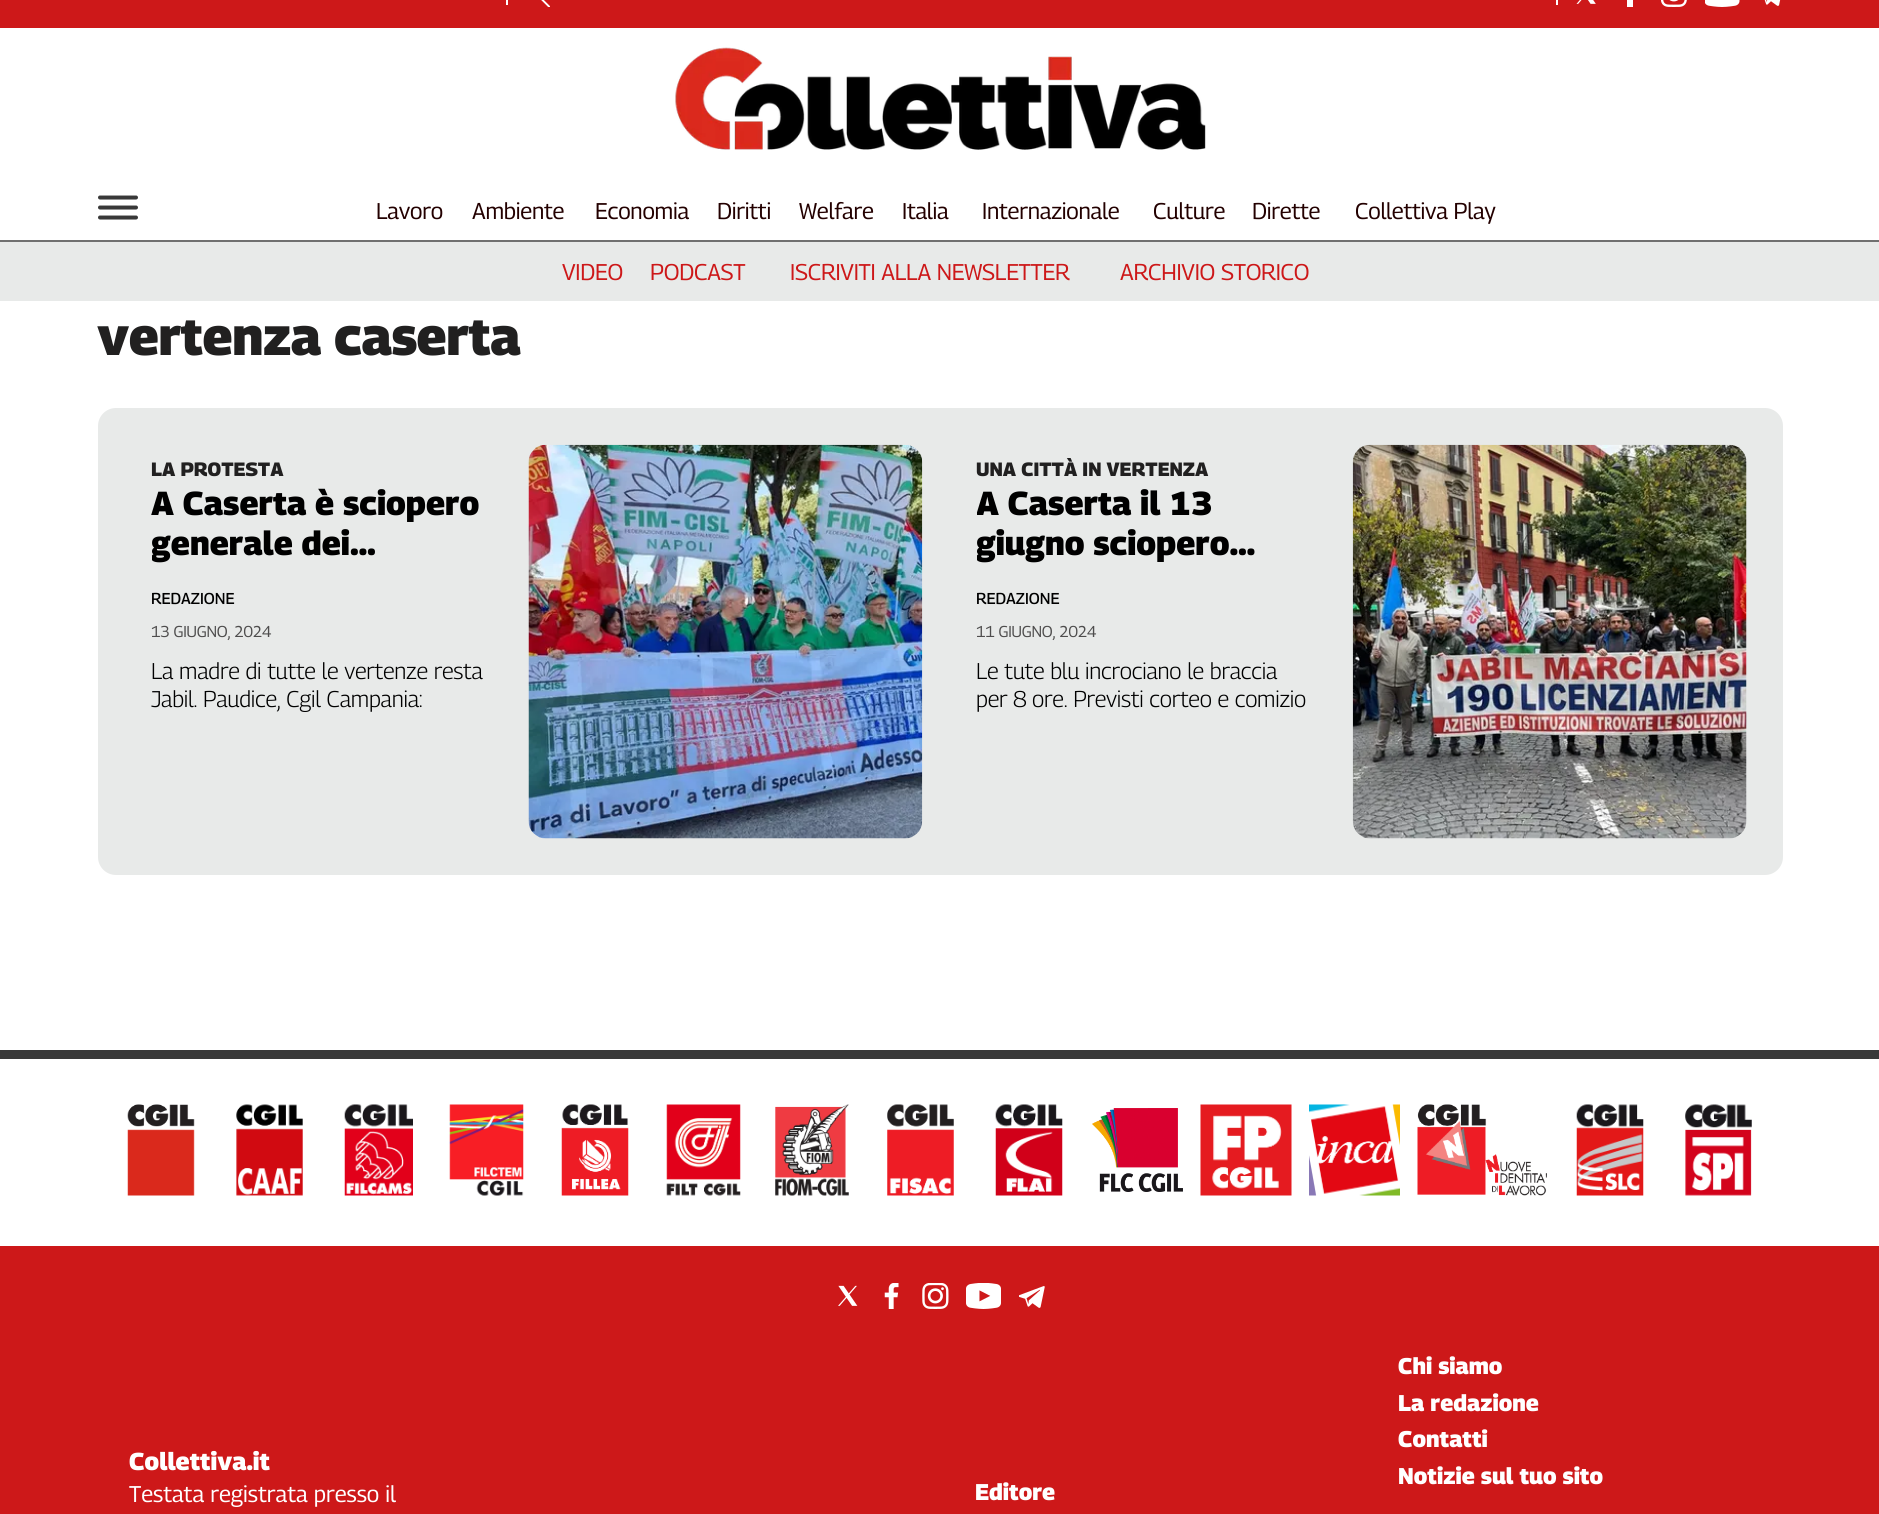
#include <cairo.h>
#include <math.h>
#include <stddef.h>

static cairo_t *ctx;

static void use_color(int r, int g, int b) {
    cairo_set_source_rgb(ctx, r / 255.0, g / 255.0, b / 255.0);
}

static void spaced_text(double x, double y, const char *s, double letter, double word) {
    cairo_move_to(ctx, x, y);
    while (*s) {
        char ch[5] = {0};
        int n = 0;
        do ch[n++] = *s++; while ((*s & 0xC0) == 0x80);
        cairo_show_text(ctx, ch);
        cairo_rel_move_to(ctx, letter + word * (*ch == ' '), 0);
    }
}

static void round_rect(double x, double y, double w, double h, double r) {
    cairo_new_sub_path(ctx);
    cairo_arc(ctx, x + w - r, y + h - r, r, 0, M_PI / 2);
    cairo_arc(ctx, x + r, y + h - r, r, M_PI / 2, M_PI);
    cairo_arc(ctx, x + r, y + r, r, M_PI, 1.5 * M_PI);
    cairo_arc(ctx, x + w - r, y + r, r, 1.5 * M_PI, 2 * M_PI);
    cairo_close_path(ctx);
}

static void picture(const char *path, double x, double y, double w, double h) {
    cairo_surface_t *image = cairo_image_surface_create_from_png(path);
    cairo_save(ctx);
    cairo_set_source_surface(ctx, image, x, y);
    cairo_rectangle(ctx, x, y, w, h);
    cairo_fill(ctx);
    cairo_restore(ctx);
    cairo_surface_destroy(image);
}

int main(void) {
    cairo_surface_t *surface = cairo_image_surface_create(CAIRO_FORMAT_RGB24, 1879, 1514);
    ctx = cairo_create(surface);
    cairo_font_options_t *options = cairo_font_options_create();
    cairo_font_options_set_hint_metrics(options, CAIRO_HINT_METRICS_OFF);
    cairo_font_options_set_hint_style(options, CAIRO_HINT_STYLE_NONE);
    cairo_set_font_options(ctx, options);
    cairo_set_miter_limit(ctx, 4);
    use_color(255, 255, 255);
    cairo_paint(ctx);
    use_color(205, 24, 25);
    cairo_rectangle(ctx, 0, 0, 1879, 28);
    cairo_fill(ctx);
    use_color(255, 255, 255);
    cairo_rectangle(ctx, 506, 0, 2, 5);
    cairo_fill(ctx);
    cairo_save(ctx);
    cairo_rectangle(ctx, 523, 0, 27, 7);
    cairo_clip(ctx);
    cairo_new_path(ctx);
    cairo_move_to(ctx, 539, -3.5);
    cairo_line_to(ctx, 549.5, 7);
    cairo_set_line_width(ctx, 1.9);
    cairo_set_line_cap(ctx, CAIRO_LINE_CAP_ROUND);
    cairo_stroke(ctx);
    cairo_restore(ctx);
    cairo_rectangle(ctx, 1556, 0, 2, 5);
    cairo_fill(ctx);
    picture("img1.png", 1576, 0, 20, 4);
    cairo_rectangle(ctx, 1627, 0, 6, 7);
    cairo_fill(ctx);
    picture("img2.png", 1661, 0, 26, 7);
    picture("img3.png", 1705, 0, 35, 7);
    picture("img4.png", 1764, 0, 17, 6);
    picture("img5.png", 675, 47, 531, 103);
    use_color(112, 112, 112);
    cairo_rectangle(ctx, 0, 240, 1879, 2);
    cairo_fill(ctx);
    cairo_new_path(ctx);
    cairo_move_to(ctx, 100, 197.5);
    cairo_line_to(ctx, 136, 197.5);
    cairo_move_to(ctx, 100, 207.5);
    cairo_line_to(ctx, 136, 207.5);
    cairo_move_to(ctx, 100, 217.5);
    cairo_line_to(ctx, 136, 217.5);
    use_color(57, 57, 57);
    cairo_set_line_width(ctx, 4);
    cairo_set_line_cap(ctx, CAIRO_LINE_CAP_ROUND);
    cairo_stroke(ctx);
    cairo_select_font_face(ctx, "Georama", CAIRO_FONT_SLANT_NORMAL, CAIRO_FONT_WEIGHT_NORMAL);
    cairo_set_font_size(ctx, 22.75);
    use_color(35, 0, 0);
    spaced_text(376, 219, "Lavoro", -0.25, 0);
    spaced_text(472, 219, "Ambiente", -0.25, 0);
    spaced_text(595, 219, "Economia", -0.25, 0);
    spaced_text(717, 219, "Diritti", -0.25, 0);
    spaced_text(799, 219, "Welfare", -0.25, 0);
    spaced_text(902, 219, "Italia", -0.25, 0);
    spaced_text(982, 219, "Internazionale", -0.25, 0);
    spaced_text(1153, 219, "Culture", -0.25, 0);
    spaced_text(1252, 219, "Dirette", -0.25, 0);
    spaced_text(1355, 219, "Collettiva Play", -0.25, 0);
    use_color(232, 234, 233);
    cairo_rectangle(ctx, 0, 242, 1879, 59);
    cairo_fill(ctx);
    use_color(205, 24, 25);
    spaced_text(562, 280, "VIDEO", -0.25, 0);
    spaced_text(650, 280, "PODCAST", -0.25, 0);
    spaced_text(790, 280, "ISCRIVITI ALLA NEWSLETTER", -0.25, 0);
    spaced_text(1120, 280, "ARCHIVIO STORICO", -0.25, 0);
    cairo_select_font_face(ctx, "Georama ExtraBold", CAIRO_FONT_SLANT_NORMAL, CAIRO_FONT_WEIGHT_NORMAL);
    cairo_set_font_size(ctx, 52.5);
    use_color(33, 32, 32);
    spaced_text(97, 355, "vertenza caserta", -0.5, 0);
    use_color(232, 234, 233);
    round_rect(98, 408, 1685, 467, 18);
    cairo_fill(ctx);
    cairo_set_font_size(ctx, 19.25);
    use_color(33, 32, 32);
    cairo_move_to(ctx, 151, 476);
    cairo_show_text(ctx, "LA PROTESTA");
    cairo_set_font_size(ctx, 33.25);
    use_color(0, 0, 0);
    cairo_move_to(ctx, 151, 515);
    cairo_show_text(ctx, "A Caserta è sciopero");
    cairo_save(ctx);
    cairo_rectangle(ctx, 152, 483, 338, 81);
    cairo_clip(ctx);
    cairo_move_to(ctx, 151, 555);
    cairo_show_text(ctx, "generale dei…");
    cairo_restore(ctx);
    cairo_select_font_face(ctx, "Georama Medium", CAIRO_FONT_SLANT_NORMAL, CAIRO_FONT_WEIGHT_NORMAL);
    cairo_set_font_size(ctx, 15.75);
    cairo_move_to(ctx, 151, 604);
    cairo_show_text(ctx, "REDAZIONE");
    cairo_select_font_face(ctx, "Georama", CAIRO_FONT_SLANT_NORMAL, CAIRO_FONT_WEIGHT_NORMAL);
    use_color(78, 77, 77);
    spaced_text(151, 637, "13 GIUGNO, 2024", -0.2, 0);
    cairo_select_font_face(ctx, "Georama Light", CAIRO_FONT_SLANT_NORMAL, CAIRO_FONT_WEIGHT_NORMAL);
    cairo_set_font_size(ctx, 22.75);
    use_color(0, 0, 0);
    spaced_text(151, 679, "La madre di tutte le vertenze resta", -0.25, 0);
    spaced_text(151, 707, "Jabil. Paudice, Cgil Campania:", -0.25, 0);
    picture("img6.png", 528, 444, 395, 395);
    cairo_select_font_face(ctx, "Georama ExtraBold", CAIRO_FONT_SLANT_NORMAL, CAIRO_FONT_WEIGHT_NORMAL);
    cairo_set_font_size(ctx, 19.25);
    use_color(33, 32, 32);
    cairo_move_to(ctx, 976, 476);
    cairo_show_text(ctx, "UNA CITTÀ IN VERTENZA");
    cairo_save(ctx);
    cairo_rectangle(ctx, 977, 483, 337, 81);
    cairo_clip(ctx);
    cairo_set_font_size(ctx, 33.25);
    use_color(0, 0, 0);
    cairo_move_to(ctx, 976, 515);
    cairo_show_text(ctx, "A Caserta il 13");
    cairo_move_to(ctx, 976, 555);
    cairo_show_text(ctx, "giugno sciopero…");
    cairo_restore(ctx);
    cairo_select_font_face(ctx, "Georama Medium", CAIRO_FONT_SLANT_NORMAL, CAIRO_FONT_WEIGHT_NORMAL);
    cairo_set_font_size(ctx, 15.75);
    use_color(0, 0, 0);
    cairo_move_to(ctx, 976, 604);
    cairo_show_text(ctx, "REDAZIONE");
    cairo_select_font_face(ctx, "Georama", CAIRO_FONT_SLANT_NORMAL, CAIRO_FONT_WEIGHT_NORMAL);
    use_color(78, 77, 77);
    spaced_text(976, 637, "11 GIUGNO, 2024", -0.2, 0);
    cairo_select_font_face(ctx, "Georama Light", CAIRO_FONT_SLANT_NORMAL, CAIRO_FONT_WEIGHT_NORMAL);
    cairo_set_font_size(ctx, 22.75);
    use_color(0, 0, 0);
    spaced_text(976, 679, "Le tute blu incrociano le braccia", -0.25, 0);
    spaced_text(976, 707, "per 8 ore. Previsti corteo e comizio", -0.25, 0);
    picture("img7.png", 1352, 444, 395, 395);
    use_color(57, 57, 57);
    cairo_rectangle(ctx, 0, 1050, 1879, 9);
    cairo_fill(ctx);
    picture("img8.png", 127, 1104, 68, 92);
    picture("img9.png", 236, 1104, 67, 92);
    picture("img10.png", 344, 1104, 69, 92);
    picture("img11.png", 449, 1104, 75, 92);
    picture("img12.png", 561, 1104, 68, 92);
    picture("img13.png", 666, 1104, 75, 92);
    picture("img14.png", 775, 1104, 74, 92);
    picture("img15.png", 887, 1104, 67, 92);
    picture("img16.png", 995, 1104, 68, 92);
    picture("img17.png", 1092, 1108, 91, 84);
    picture("img18.png", 1200, 1104, 92, 92);
    picture("img19.png", 1309, 1104, 91, 92);
    picture("img20.png", 1417, 1104, 130, 92);
    picture("img21.png", 1576, 1104, 68, 92);
    picture("img22.png", 1685, 1104, 67, 92);
    use_color(205, 24, 25);
    cairo_rectangle(ctx, 0, 1246, 1879, 268);
    cairo_fill(ctx);
    cairo_select_font_face(ctx, "Georama ExtraBold", CAIRO_FONT_SLANT_NORMAL, CAIRO_FONT_WEIGHT_NORMAL);
    cairo_set_font_size(ctx, 24.5);
    use_color(255, 255, 255);
    cairo_move_to(ctx, 129, 1470);
    cairo_show_text(ctx, "Collettiva.it");
    cairo_select_font_face(ctx, "Georama", CAIRO_FONT_SLANT_NORMAL, CAIRO_FONT_WEIGHT_NORMAL);
    cairo_set_font_size(ctx, 22.75);
    cairo_move_to(ctx, 129, 1502);
    cairo_show_text(ctx, "Testata registrata presso il");
    cairo_select_font_face(ctx, "Georama ExtraBold", CAIRO_FONT_SLANT_NORMAL, CAIRO_FONT_WEIGHT_NORMAL);
    cairo_move_to(ctx, 975, 1500);
    cairo_show_text(ctx, "Editore");
    picture("img23.png", 838, 1285, 20, 21);
    picture("img24.png", 884, 1283, 15, 26);
    picture("img25.png", 922, 1283, 27, 26);
    picture("img26.png", 966, 1283, 35, 26);
    picture("img27.png", 1019, 1286, 26, 22);
    cairo_move_to(ctx, 1398, 1374);
    cairo_show_text(ctx, "Chi siamo");
    cairo_move_to(ctx, 1398, 1411);
    cairo_show_text(ctx, "La redazione");
    cairo_move_to(ctx, 1398, 1447);
    cairo_show_text(ctx, "Contatti");
    cairo_move_to(ctx, 1398, 1484);
    cairo_show_text(ctx, "Notizie sul tuo sito");
    cairo_surface_write_to_png(surface, "result.png");
    cairo_font_options_destroy(options);
    cairo_destroy(ctx);
    cairo_surface_destroy(surface);
    return 0;
}
